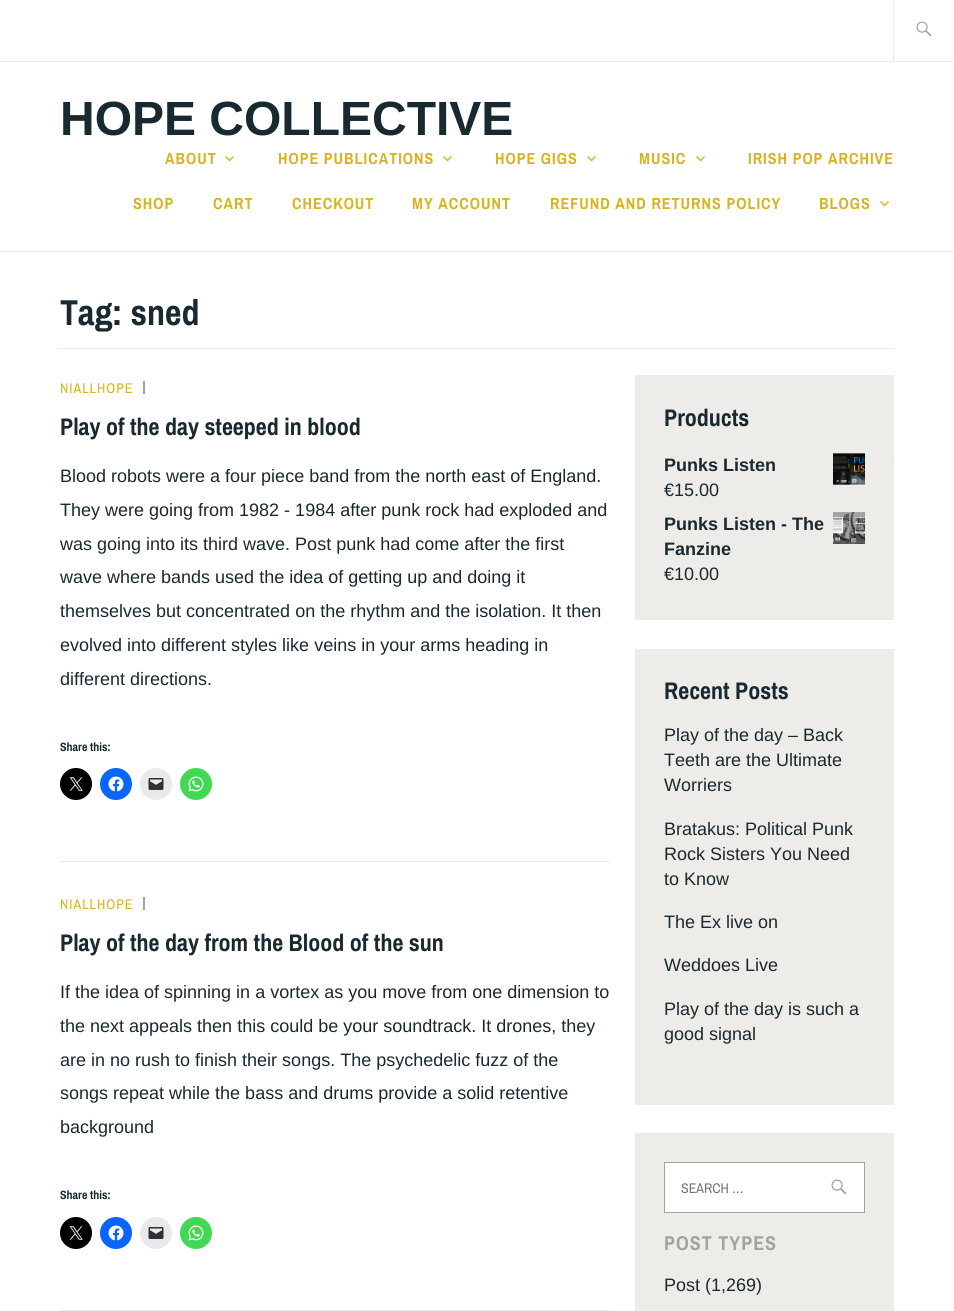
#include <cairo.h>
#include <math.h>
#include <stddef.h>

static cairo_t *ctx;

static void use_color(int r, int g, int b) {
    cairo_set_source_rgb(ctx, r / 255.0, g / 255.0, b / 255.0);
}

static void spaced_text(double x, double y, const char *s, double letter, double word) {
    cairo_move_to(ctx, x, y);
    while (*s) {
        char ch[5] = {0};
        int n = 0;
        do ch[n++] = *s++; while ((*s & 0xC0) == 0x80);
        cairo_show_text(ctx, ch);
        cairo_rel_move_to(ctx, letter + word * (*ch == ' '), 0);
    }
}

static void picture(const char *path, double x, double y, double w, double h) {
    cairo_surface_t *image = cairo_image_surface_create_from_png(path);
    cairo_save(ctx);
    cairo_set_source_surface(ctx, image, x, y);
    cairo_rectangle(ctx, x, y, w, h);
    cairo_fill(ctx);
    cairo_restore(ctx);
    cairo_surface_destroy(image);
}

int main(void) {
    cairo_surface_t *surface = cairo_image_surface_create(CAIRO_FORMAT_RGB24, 954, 1311);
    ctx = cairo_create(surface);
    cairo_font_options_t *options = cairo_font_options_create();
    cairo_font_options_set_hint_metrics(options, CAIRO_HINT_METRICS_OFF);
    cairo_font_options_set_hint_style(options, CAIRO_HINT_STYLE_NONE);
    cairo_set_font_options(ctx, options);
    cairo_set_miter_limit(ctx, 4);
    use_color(255, 255, 255);
    cairo_paint(ctx);
    use_color(238, 236, 232);
    cairo_rectangle(ctx, 0, 251, 954, 1);
    cairo_fill(ctx);
    cairo_rectangle(ctx, 0, 61, 954, 1);
    cairo_fill(ctx);
    cairo_rectangle(ctx, 893, 0, 1, 61);
    cairo_fill(ctx);
    picture("img1.png", 916, 21, 16, 16);
    cairo_select_font_face(ctx, "Liberation Sans", CAIRO_FONT_SLANT_NORMAL, CAIRO_FONT_WEIGHT_BOLD);
    cairo_set_font_size(ctx, 48);
    use_color(25, 41, 48);
    cairo_move_to(ctx, 60, 135);
    cairo_show_text(ctx, "HOPE COLLECTIVE");
    cairo_select_font_face(ctx, "Archivo Narrow", CAIRO_FONT_SLANT_NORMAL, CAIRO_FONT_WEIGHT_BOLD);
    cairo_set_font_size(ctx, 16);
    use_color(215, 178, 33);
    spaced_text(165, 164, "ABOUT", 1, 0);
    picture("img2.png", 225, 156, 9, 6);
    spaced_text(278, 164, "HOPE PUBLICATIONS", 1, 0);
    picture("img2.png", 443, 156, 9, 6);
    spaced_text(495, 164, "HOPE GIGS", 1, 0);
    picture("img2.png", 587, 156, 9, 6);
    spaced_text(639, 164, "MUSIC", 1, 0);
    picture("img2.png", 696, 156, 9, 6);
    spaced_text(748, 164, "IRISH POP ARCHIVE", 1, 0);
    spaced_text(133, 209, "SHOP", 1, 0);
    spaced_text(213, 209, "CART", 1, 0);
    spaced_text(292, 209, "CHECKOUT", 1, 0);
    spaced_text(412, 209, "MY ACCOUNT", 1, 0);
    spaced_text(550, 209, "REFUND AND RETURNS POLICY", 1, 0);
    spaced_text(819, 209, "BLOGS", 1, 0);
    picture("img2.png", 880, 201, 9, 6);
    use_color(238, 236, 232);
    cairo_rectangle(ctx, 60, 348, 834, 1);
    cairo_fill(ctx);
    cairo_set_font_size(ctx, 36);
    use_color(25, 41, 48);
    cairo_move_to(ctx, 60, 325);
    cairo_show_text(ctx, "Tag: sned");
    use_color(238, 236, 232);
    cairo_rectangle(ctx, 60, 861, 550, 1);
    cairo_fill(ctx);
    cairo_select_font_face(ctx, "Archivo Narrow", CAIRO_FONT_SLANT_NORMAL, CAIRO_FONT_WEIGHT_NORMAL);
    cairo_set_font_size(ctx, 14);
    use_color(215, 178, 33);
    spaced_text(60, 393, "NIALLHOPE", 1, 0);
    use_color(165, 162, 157);
    cairo_rectangle(ctx, 143, 381, 2, 13);
    cairo_fill(ctx);
    cairo_select_font_face(ctx, "Archivo Narrow", CAIRO_FONT_SLANT_NORMAL, CAIRO_FONT_WEIGHT_BOLD);
    cairo_set_font_size(ctx, 24);
    use_color(25, 41, 48);
    cairo_move_to(ctx, 60, 435);
    cairo_show_text(ctx, "Play of the day steeped in blood");
    cairo_select_font_face(ctx, "Liberation Sans", CAIRO_FONT_SLANT_NORMAL, CAIRO_FONT_WEIGHT_NORMAL);
    cairo_set_font_size(ctx, 18);
    cairo_move_to(ctx, 60, 482);
    cairo_show_text(ctx, "Blood robots were a four piece band from the north east of England.");
    cairo_move_to(ctx, 60, 516);
    cairo_show_text(ctx, "They were going from 1982 - 1984 after punk rock had exploded and");
    cairo_move_to(ctx, 60, 550);
    cairo_show_text(ctx, "was going into its third wave. Post punk had come after the first");
    cairo_move_to(ctx, 60, 583);
    cairo_show_text(ctx, "wave where bands used the idea of getting up and doing it");
    cairo_move_to(ctx, 60, 617);
    cairo_show_text(ctx, "themselves but concentrated on the rhythm and the isolation. It then");
    cairo_move_to(ctx, 60, 651);
    cairo_show_text(ctx, "evolved into different styles like veins in your arms heading in");
    cairo_move_to(ctx, 60, 685);
    cairo_show_text(ctx, "different directions.");
    cairo_select_font_face(ctx, "Archivo Narrow", CAIRO_FONT_SLANT_NORMAL, CAIRO_FONT_WEIGHT_BOLD);
    cairo_set_font_size(ctx, 12);
    cairo_move_to(ctx, 60, 751);
    cairo_show_text(ctx, "Share this:");
    use_color(0, 0, 0);
    cairo_new_path(ctx);
    cairo_arc(ctx, 76, 784, 16, 0, 2 * M_PI);
    cairo_fill(ctx);
    picture("img3.png", 69, 777, 14, 14);
    use_color(8, 102, 255);
    cairo_arc(ctx, 116, 784, 16, 0, 2 * M_PI);
    cairo_fill(ctx);
    picture("img4.png", 108, 776, 16, 16);
    use_color(233, 233, 233);
    cairo_arc(ctx, 156, 784, 16, 0, 2 * M_PI);
    cairo_fill(ctx);
    picture("img5.png", 148, 778, 16, 12);
    use_color(67, 216, 84);
    cairo_arc(ctx, 196, 784, 16, 0, 2 * M_PI);
    cairo_fill(ctx);
    picture("img6.png", 188, 776, 16, 16);
    use_color(238, 236, 232);
    cairo_rectangle(ctx, 60, 1310, 550, 1);
    cairo_fill(ctx);
    cairo_select_font_face(ctx, "Archivo Narrow", CAIRO_FONT_SLANT_NORMAL, CAIRO_FONT_WEIGHT_NORMAL);
    cairo_set_font_size(ctx, 14);
    use_color(215, 178, 33);
    spaced_text(60, 909, "NIALLHOPE", 1, 0);
    use_color(165, 162, 157);
    cairo_rectangle(ctx, 143, 897, 2, 13);
    cairo_fill(ctx);
    cairo_select_font_face(ctx, "Archivo Narrow", CAIRO_FONT_SLANT_NORMAL, CAIRO_FONT_WEIGHT_BOLD);
    cairo_set_font_size(ctx, 24);
    use_color(25, 41, 48);
    cairo_move_to(ctx, 60, 951);
    cairo_show_text(ctx, "Play of the day from the Blood of the sun");
    cairo_select_font_face(ctx, "Liberation Sans", CAIRO_FONT_SLANT_NORMAL, CAIRO_FONT_WEIGHT_NORMAL);
    cairo_set_font_size(ctx, 18);
    cairo_move_to(ctx, 60, 998);
    cairo_show_text(ctx, "If the idea of spinning in a vortex as you move from one dimension to");
    cairo_move_to(ctx, 60, 1032);
    cairo_show_text(ctx, "the next appeals then this could be your soundtrack. It drones, they");
    cairo_move_to(ctx, 60, 1066);
    cairo_show_text(ctx, "are in no rush to finish their songs. The psychedelic fuzz of the");
    cairo_move_to(ctx, 60, 1099);
    cairo_show_text(ctx, "songs repeat while the bass and drums provide a solid retentive");
    cairo_move_to(ctx, 60, 1133);
    cairo_show_text(ctx, "background");
    cairo_select_font_face(ctx, "Archivo Narrow", CAIRO_FONT_SLANT_NORMAL, CAIRO_FONT_WEIGHT_BOLD);
    cairo_set_font_size(ctx, 12);
    cairo_move_to(ctx, 60, 1199);
    cairo_show_text(ctx, "Share this:");
    use_color(0, 0, 0);
    cairo_new_path(ctx);
    cairo_arc(ctx, 76, 1233, 16, 0, 2 * M_PI);
    cairo_fill(ctx);
    picture("img3.png", 69, 1226, 14, 14);
    use_color(8, 102, 255);
    cairo_arc(ctx, 116, 1233, 16, 0, 2 * M_PI);
    cairo_fill(ctx);
    picture("img4.png", 108, 1225, 16, 16);
    use_color(233, 233, 233);
    cairo_arc(ctx, 156, 1233, 16, 0, 2 * M_PI);
    cairo_fill(ctx);
    picture("img5.png", 148, 1227, 16, 12);
    use_color(67, 216, 84);
    cairo_arc(ctx, 196, 1233, 16, 0, 2 * M_PI);
    cairo_fill(ctx);
    picture("img6.png", 188, 1225, 16, 16);
    use_color(238, 236, 232);
    cairo_rectangle(ctx, 635, 375, 259, 245);
    cairo_fill(ctx);
    cairo_set_font_size(ctx, 24);
    use_color(25, 41, 48);
    cairo_move_to(ctx, 664, 426);
    cairo_show_text(ctx, "Products");
    cairo_select_font_face(ctx, "Liberation Sans", CAIRO_FONT_SLANT_NORMAL, CAIRO_FONT_WEIGHT_BOLD);
    cairo_set_font_size(ctx, 18);
    cairo_move_to(ctx, 664, 471);
    cairo_show_text(ctx, "Punks Listen");
    picture("img7.png", 833, 453, 32, 32);
    cairo_select_font_face(ctx, "Liberation Sans", CAIRO_FONT_SLANT_NORMAL, CAIRO_FONT_WEIGHT_NORMAL);
    cairo_move_to(ctx, 664, 496);
    cairo_show_text(ctx, "€15.00");
    cairo_select_font_face(ctx, "Liberation Sans", CAIRO_FONT_SLANT_NORMAL, CAIRO_FONT_WEIGHT_BOLD);
    cairo_move_to(ctx, 664, 530);
    cairo_show_text(ctx, "Punks Listen - The");
    picture("img8.png", 833, 512, 32, 32);
    cairo_move_to(ctx, 664, 555);
    cairo_show_text(ctx, "Fanzine");
    cairo_select_font_face(ctx, "Liberation Sans", CAIRO_FONT_SLANT_NORMAL, CAIRO_FONT_WEIGHT_NORMAL);
    cairo_move_to(ctx, 664, 580);
    cairo_show_text(ctx, "€10.00");
    use_color(238, 236, 232);
    cairo_rectangle(ctx, 635, 649, 259, 456);
    cairo_fill(ctx);
    cairo_select_font_face(ctx, "Archivo Narrow", CAIRO_FONT_SLANT_NORMAL, CAIRO_FONT_WEIGHT_BOLD);
    cairo_set_font_size(ctx, 24);
    use_color(25, 41, 48);
    cairo_move_to(ctx, 664, 699);
    cairo_show_text(ctx, "Recent Posts");
    cairo_select_font_face(ctx, "Liberation Sans", CAIRO_FONT_SLANT_NORMAL, CAIRO_FONT_WEIGHT_NORMAL);
    cairo_set_font_size(ctx, 18);
    cairo_move_to(ctx, 664, 741);
    cairo_show_text(ctx, "Play of the day – Back");
    cairo_move_to(ctx, 664, 766);
    cairo_show_text(ctx, "Teeth are the Ultimate");
    cairo_move_to(ctx, 664, 791);
    cairo_show_text(ctx, "Worriers");
    cairo_move_to(ctx, 664, 835);
    cairo_show_text(ctx, "Bratakus: Political Punk");
    cairo_move_to(ctx, 664, 860);
    cairo_show_text(ctx, "Rock Sisters You Need");
    cairo_move_to(ctx, 664, 885);
    cairo_show_text(ctx, "to Know");
    cairo_move_to(ctx, 664, 928);
    cairo_show_text(ctx, "The Ex live on");
    cairo_move_to(ctx, 664, 971);
    cairo_show_text(ctx, "Weddoes Live");
    cairo_move_to(ctx, 664, 1015);
    cairo_show_text(ctx, "Play of the day is such a");
    cairo_move_to(ctx, 664, 1040);
    cairo_show_text(ctx, "good signal");
    use_color(238, 236, 232);
    cairo_rectangle(ctx, 635, 1133, 259, 178);
    cairo_fill(ctx);
    use_color(255, 255, 255);
    cairo_rectangle(ctx, 664.5, 1162.5, 200, 50);
    cairo_fill_preserve(ctx);
    use_color(165, 162, 157);
    cairo_set_line_width(ctx, 1);
    cairo_stroke(ctx);
    cairo_select_font_face(ctx, "Archivo Narrow", CAIRO_FONT_SLANT_NORMAL, CAIRO_FONT_WEIGHT_NORMAL);
    cairo_set_font_size(ctx, 14);
    use_color(117, 117, 117);
    cairo_move_to(ctx, 681, 1193);
    cairo_show_text(ctx, "SEARCH …");
    picture("img1.png", 831, 1179, 16, 16);
    cairo_select_font_face(ctx, "Archivo Narrow", CAIRO_FONT_SLANT_NORMAL, CAIRO_FONT_WEIGHT_BOLD);
    cairo_set_font_size(ctx, 20);
    use_color(165, 162, 157);
    spaced_text(664, 1250, "POST TYPES", 1, 0);
    cairo_select_font_face(ctx, "Liberation Sans", CAIRO_FONT_SLANT_NORMAL, CAIRO_FONT_WEIGHT_NORMAL);
    cairo_set_font_size(ctx, 18);
    use_color(25, 41, 48);
    cairo_move_to(ctx, 664, 1291);
    cairo_show_text(ctx, "Post (1,269)");
    cairo_surface_write_to_png(surface, "result.png");
    cairo_font_options_destroy(options);
    cairo_destroy(ctx);
    cairo_surface_destroy(surface);
    return 0;
}
